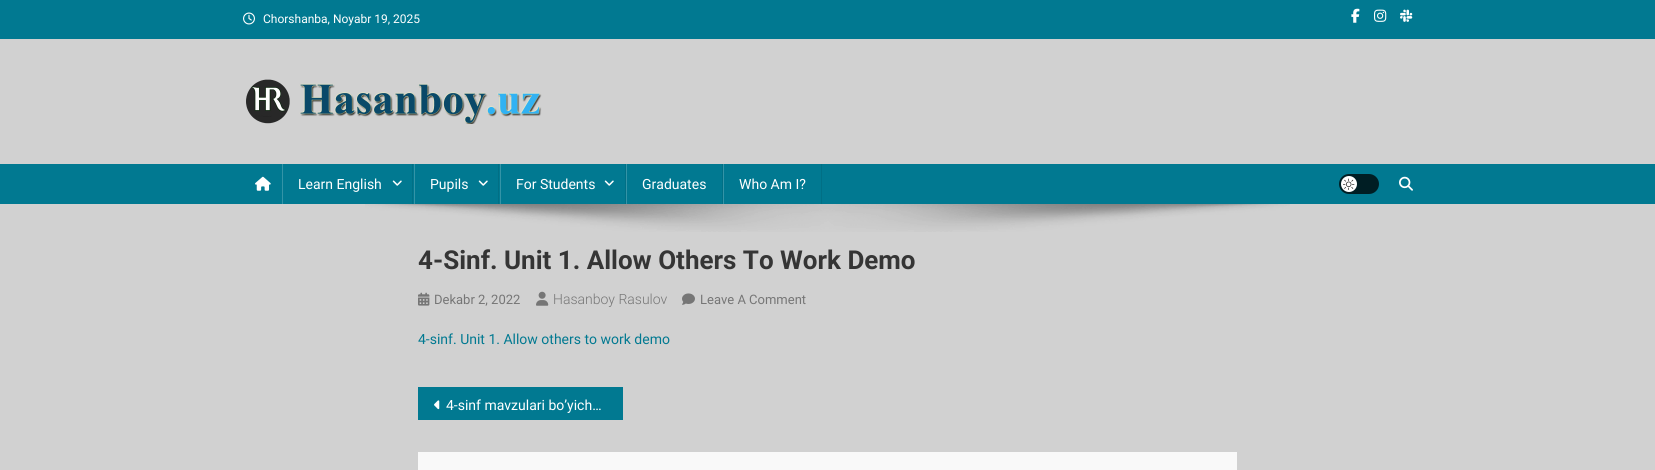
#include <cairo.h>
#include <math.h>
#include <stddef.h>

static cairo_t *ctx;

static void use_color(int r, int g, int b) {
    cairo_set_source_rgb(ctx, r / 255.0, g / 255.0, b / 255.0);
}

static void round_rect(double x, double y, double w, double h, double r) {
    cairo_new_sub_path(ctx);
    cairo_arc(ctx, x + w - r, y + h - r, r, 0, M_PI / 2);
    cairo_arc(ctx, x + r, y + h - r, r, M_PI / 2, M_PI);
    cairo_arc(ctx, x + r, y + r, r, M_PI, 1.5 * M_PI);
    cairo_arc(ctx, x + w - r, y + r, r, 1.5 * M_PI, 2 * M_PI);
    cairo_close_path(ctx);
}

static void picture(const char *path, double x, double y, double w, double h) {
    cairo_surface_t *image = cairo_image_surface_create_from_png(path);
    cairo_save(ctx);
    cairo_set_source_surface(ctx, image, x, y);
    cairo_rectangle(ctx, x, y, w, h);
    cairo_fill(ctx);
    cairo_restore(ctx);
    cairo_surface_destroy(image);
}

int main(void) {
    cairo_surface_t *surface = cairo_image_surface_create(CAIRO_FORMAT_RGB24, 1655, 470);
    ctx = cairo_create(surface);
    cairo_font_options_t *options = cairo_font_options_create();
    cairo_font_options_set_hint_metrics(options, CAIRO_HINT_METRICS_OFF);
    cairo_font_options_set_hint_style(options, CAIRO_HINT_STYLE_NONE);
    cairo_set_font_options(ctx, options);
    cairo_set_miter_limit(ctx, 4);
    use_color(209, 209, 209);
    cairo_paint(ctx);
    use_color(1, 121, 145);
    cairo_rectangle(ctx, 0, 0, 1655, 39);
    cairo_fill(ctx);
    picture("img1.png", 243, 12, 12, 13);
    cairo_select_font_face(ctx, "Roboto", CAIRO_FONT_SLANT_NORMAL, CAIRO_FONT_WEIGHT_NORMAL);
    cairo_set_font_size(ctx, 12);
    use_color(255, 255, 255);
    cairo_move_to(ctx, 263, 23);
    cairo_show_text(ctx, "Chorshanba, Noyabr 19, 2025");
    picture("img2.png", 1351, 8, 9, 15);
    picture("img3.png", 1374, 9, 13, 13);
    picture("img4.png", 1400, 9, 13, 13);
    picture("img5.png", 246, 79, 296, 45);
    use_color(1, 121, 145);
    cairo_rectangle(ctx, 0, 164, 1655, 40);
    cairo_fill(ctx);
    picture("img6.png", 255, 176, 16, 15);
    use_color(1, 111, 133);
    cairo_rectangle(ctx, 412, 164, 1, 40);
    cairo_fill(ctx);
    use_color(52, 148, 167);
    cairo_rectangle(ctx, 282, 164, 1, 40);
    cairo_fill(ctx);
    cairo_set_font_size(ctx, 14);
    use_color(255, 255, 255);
    cairo_move_to(ctx, 298, 189);
    cairo_show_text(ctx, "Learn English");
    picture("img7.png", 392, 180, 10, 6);
    use_color(1, 111, 133);
    cairo_rectangle(ctx, 498, 164, 1, 40);
    cairo_fill(ctx);
    use_color(52, 148, 167);
    cairo_rectangle(ctx, 414, 164, 1, 40);
    cairo_fill(ctx);
    use_color(255, 255, 255);
    cairo_move_to(ctx, 430, 189);
    cairo_show_text(ctx, "Pupils");
    picture("img7.png", 478, 180, 10, 6);
    use_color(1, 111, 133);
    cairo_rectangle(ctx, 625, 164, 1, 40);
    cairo_fill(ctx);
    use_color(52, 148, 167);
    cairo_rectangle(ctx, 500, 164, 1, 40);
    cairo_fill(ctx);
    use_color(255, 255, 255);
    cairo_move_to(ctx, 516, 189);
    cairo_show_text(ctx, "For Students");
    picture("img7.png", 604, 180, 10, 6);
    use_color(1, 111, 133);
    cairo_rectangle(ctx, 722, 164, 1, 40);
    cairo_fill(ctx);
    use_color(52, 148, 167);
    cairo_rectangle(ctx, 626, 164, 1, 40);
    cairo_fill(ctx);
    use_color(255, 255, 255);
    cairo_move_to(ctx, 642, 189);
    cairo_show_text(ctx, "Graduates");
    use_color(1, 111, 133);
    cairo_rectangle(ctx, 821, 164, 1, 40);
    cairo_fill(ctx);
    use_color(52, 148, 167);
    cairo_rectangle(ctx, 723, 164, 1, 40);
    cairo_fill(ctx);
    use_color(255, 255, 255);
    cairo_move_to(ctx, 739, 189);
    cairo_show_text(ctx, "Who Am I?");
    use_color(0, 30, 36);
    round_rect(1339, 174, 40, 20, 10);
    cairo_fill(ctx);
    use_color(255, 255, 255);
    cairo_arc(ctx, 1349, 184, 8, 0, 2 * M_PI);
    cairo_fill(ctx);
    picture("img8.png", 1343, 178, 12, 12);
    picture("img9.png", 1399, 176, 14, 15);
    picture("img10.png", 365, 204, 925, 28);
    cairo_select_font_face(ctx, "Roboto", CAIRO_FONT_SLANT_NORMAL, CAIRO_FONT_WEIGHT_BOLD);
    cairo_set_font_size(ctx, 26);
    use_color(53, 53, 53);
    cairo_move_to(ctx, 418, 269);
    cairo_show_text(ctx, "4-Sinf. Unit 1. Allow Others To Work Demo");
    picture("img11.png", 418, 292, 12, 14);
    cairo_select_font_face(ctx, "Roboto", CAIRO_FONT_SLANT_NORMAL, CAIRO_FONT_WEIGHT_NORMAL);
    cairo_set_font_size(ctx, 13);
    use_color(118, 118, 118);
    cairo_move_to(ctx, 434, 304);
    cairo_show_text(ctx, "Dekabr 2, 2022");
    picture("img12.png", 536, 291, 13, 15);
    cairo_select_font_face(ctx, "Roboto Light", CAIRO_FONT_SLANT_NORMAL, CAIRO_FONT_WEIGHT_NORMAL);
    cairo_set_font_size(ctx, 14);
    cairo_move_to(ctx, 553, 304);
    cairo_show_text(ctx, "Hasanboy Rasulov");
    picture("img13.png", 682, 293, 13, 12);
    cairo_select_font_face(ctx, "Roboto", CAIRO_FONT_SLANT_NORMAL, CAIRO_FONT_WEIGHT_NORMAL);
    cairo_set_font_size(ctx, 13);
    cairo_move_to(ctx, 700, 304);
    cairo_show_text(ctx, "Leave A Comment");
    cairo_set_font_size(ctx, 14);
    use_color(1, 121, 145);
    cairo_move_to(ctx, 418, 344);
    cairo_show_text(ctx, "4-sinf. Unit 1. Allow others to work demo");
    cairo_rectangle(ctx, 418, 387, 205, 33);
    cairo_fill(ctx);
    picture("img14.png", 434, 400, 6, 10);
    use_color(255, 255, 255);
    cairo_move_to(ctx, 446, 410);
    cairo_show_text(ctx, "4-sinf mavzulari bo’yich…");
    use_color(249, 249, 249);
    cairo_rectangle(ctx, 418, 452, 819, 18);
    cairo_fill(ctx);
    cairo_surface_write_to_png(surface, "result.png");
    cairo_font_options_destroy(options);
    cairo_destroy(ctx);
    cairo_surface_destroy(surface);
    return 0;
}
